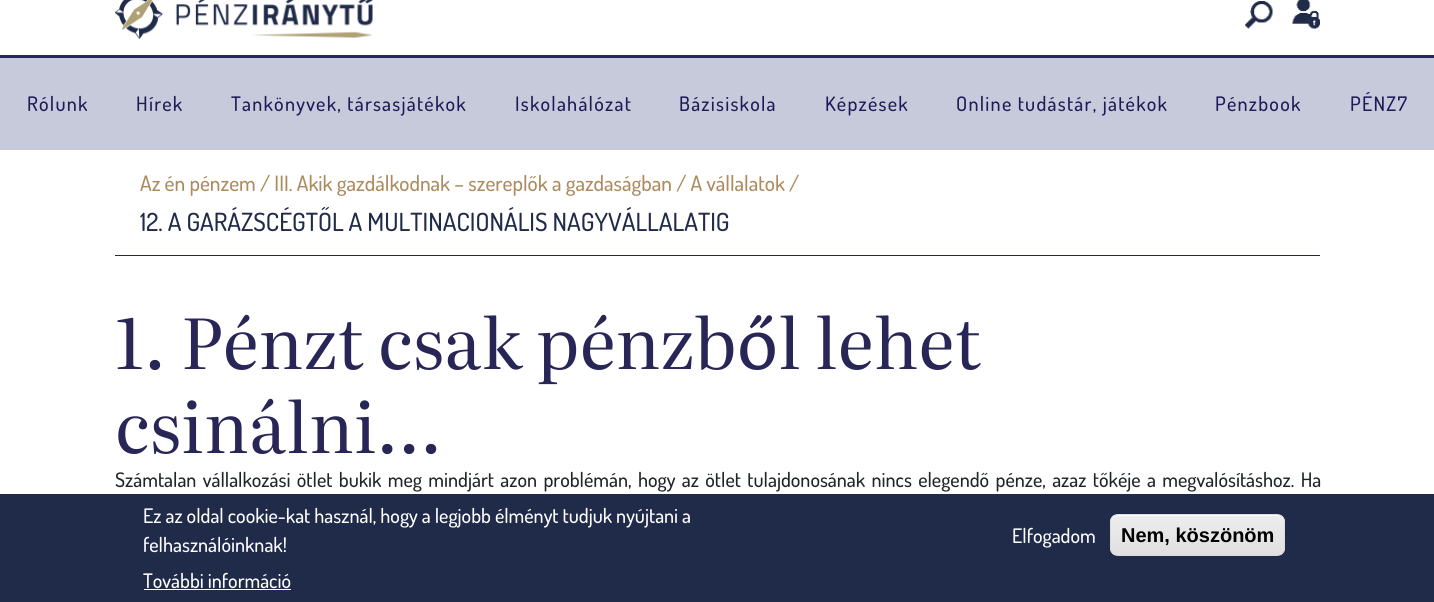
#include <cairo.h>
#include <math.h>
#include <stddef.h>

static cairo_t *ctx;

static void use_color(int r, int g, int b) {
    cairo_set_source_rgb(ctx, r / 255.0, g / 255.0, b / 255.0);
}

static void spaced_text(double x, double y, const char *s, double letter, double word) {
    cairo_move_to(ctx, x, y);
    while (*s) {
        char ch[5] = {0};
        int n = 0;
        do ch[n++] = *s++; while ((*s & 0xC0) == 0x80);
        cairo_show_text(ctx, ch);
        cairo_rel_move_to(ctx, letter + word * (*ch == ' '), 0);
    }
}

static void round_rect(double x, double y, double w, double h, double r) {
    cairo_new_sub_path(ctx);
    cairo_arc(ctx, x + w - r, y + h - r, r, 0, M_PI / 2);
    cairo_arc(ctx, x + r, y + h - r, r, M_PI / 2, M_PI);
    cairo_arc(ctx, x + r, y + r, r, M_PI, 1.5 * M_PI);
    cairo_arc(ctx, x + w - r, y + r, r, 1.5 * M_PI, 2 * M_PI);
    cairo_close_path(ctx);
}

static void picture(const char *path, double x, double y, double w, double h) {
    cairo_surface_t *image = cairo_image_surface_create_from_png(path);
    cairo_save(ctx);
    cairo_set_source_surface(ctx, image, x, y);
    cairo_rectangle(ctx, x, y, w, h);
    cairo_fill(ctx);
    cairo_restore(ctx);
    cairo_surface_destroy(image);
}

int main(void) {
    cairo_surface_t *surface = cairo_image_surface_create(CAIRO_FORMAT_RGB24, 1434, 602);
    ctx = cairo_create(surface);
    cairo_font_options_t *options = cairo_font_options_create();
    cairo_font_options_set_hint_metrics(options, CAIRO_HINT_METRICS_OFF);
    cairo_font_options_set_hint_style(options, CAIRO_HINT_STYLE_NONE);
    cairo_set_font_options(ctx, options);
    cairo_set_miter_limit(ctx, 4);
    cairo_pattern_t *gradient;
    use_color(255, 255, 255);
    cairo_paint(ctx);
    picture("img1.png", 115, 0, 258, 39);
    picture("img2.png", 1245, 1, 28, 28);
    picture("img3.png", 1292, 0, 28, 29);
    use_color(39, 38, 86);
    cairo_rectangle(ctx, 0, 55, 1434, 3);
    cairo_fill(ctx);
    use_color(199, 202, 219);
    cairo_rectangle(ctx, 0, 58, 1434, 92);
    cairo_fill(ctx);
    cairo_select_font_face(ctx, "Dosis Medium", CAIRO_FONT_SLANT_NORMAL, CAIRO_FONT_WEIGHT_NORMAL);
    cairo_set_font_size(ctx, 20);
    use_color(31, 27, 88);
    spaced_text(27, 111, "Rólunk", 1.25, 0);
    spaced_text(136, 111, "Hírek", 1.25, 0);
    spaced_text(231, 111, "Tankönyvek, társasjátékok", 1.25, 0);
    spaced_text(515, 111, "Iskolahálózat", 1.25, 0);
    spaced_text(679, 111, "Bázisiskola", 1.25, 0);
    spaced_text(825, 111, "Képzések", 1.25, 0);
    spaced_text(956, 111, "Online tudástár, játékok", 1.25, 0);
    spaced_text(1215, 111, "Pénzbook", 1.25, 0);
    spaced_text(1350, 111, "PÉNZ7", 1.25, 0);
    use_color(32, 43, 74);
    cairo_rectangle(ctx, 115, 255, 1205, 1);
    cairo_fill(ctx);
    cairo_set_font_size(ctx, 21.25);
    use_color(173, 139, 96);
    cairo_move_to(ctx, 140, 191);
    cairo_show_text(ctx, "Az én pénzem / III. Akik gazdálkodnak – szereplők a gazdaságban / A vállalatok /");
    cairo_set_font_size(ctx, 25);
    use_color(32, 43, 74);
    cairo_move_to(ctx, 140, 231);
    cairo_show_text(ctx, "12. A GARÁZSCÉGTŐL A MULTINACIONÁLIS NAGYVÁLLALATIG");
    cairo_select_font_face(ctx, "Literata", CAIRO_FONT_SLANT_NORMAL, CAIRO_FONT_WEIGHT_NORMAL);
    cairo_set_font_size(ctx, 70);
    use_color(39, 38, 86);
    cairo_move_to(ctx, 115, 369);
    cairo_show_text(ctx, "1. Pénzt csak pénzb");
    cairo_select_font_face(ctx, "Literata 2", CAIRO_FONT_SLANT_NORMAL, CAIRO_FONT_WEIGHT_NORMAL);
    cairo_move_to(ctx, 737, 369);
    cairo_show_text(ctx, "ő");
    cairo_select_font_face(ctx, "Literata", CAIRO_FONT_SLANT_NORMAL, CAIRO_FONT_WEIGHT_NORMAL);
    cairo_move_to(ctx, 778, 369);
    cairo_show_text(ctx, "l lehet");
    cairo_move_to(ctx, 115, 453);
    cairo_show_text(ctx, "csinálni…");
    cairo_select_font_face(ctx, "Dosis Medium", CAIRO_FONT_SLANT_NORMAL, CAIRO_FONT_WEIGHT_NORMAL);
    cairo_set_font_size(ctx, 20);
    use_color(33, 37, 41);
    spaced_text(115, 487, "Számtalan vállalkozási ötlet bukik meg mindjárt azon problémán, hogy az ötlet tulajdonosának nincs elegendő pénze, azaz tőkéje a megvalósításhoz. Ha", 0, 2.4);
    use_color(32, 43, 74);
    cairo_rectangle(ctx, 0, 494, 1434, 108);
    cairo_fill(ctx);
    use_color(255, 255, 255);
    cairo_move_to(ctx, 143, 523);
    cairo_show_text(ctx, "Ez az oldal cookie-kat használ, hogy a legjobb élményt tudjuk nyújtani a");
    cairo_move_to(ctx, 143, 552);
    cairo_show_text(ctx, "felhasználóinknak!");
    cairo_move_to(ctx, 143, 588);
    cairo_show_text(ctx, "További információ");
    cairo_rectangle(ctx, 144, 589, 147, 1);
    cairo_fill(ctx);
    cairo_move_to(ctx, 1012, 543);
    cairo_show_text(ctx, "Elfogadom");
    cairo_save(ctx);
    round_rect(1110, 514, 175, 42, 8);
    cairo_clip(ctx);
    gradient = cairo_pattern_create_linear(1198, 515, 1198, 555);
    cairo_pattern_add_color_stop_rgba(gradient, 0.05, 0.929, 0.929, 0.929, 1);
    cairo_pattern_add_color_stop_rgba(gradient, 1, 0.875, 0.875, 0.875, 1);
    cairo_set_source(ctx, gradient);
    cairo_pattern_destroy(gradient);
    cairo_rectangle(ctx, 1110, 515, 175, 40);
    cairo_fill(ctx);
    cairo_restore(ctx);
    cairo_new_path(ctx);
    cairo_move_to(ctx, 1118, 516);
    cairo_line_to(ctx, 1278, 516);
    cairo_curve_to(ctx, 1281, 516, 1284, 519, 1284, 522);
    cairo_line_to(ctx, 1284, 521);
    cairo_curve_to(ctx, 1284, 518, 1281, 515, 1278, 515);
    cairo_line_to(ctx, 1117, 515);
    cairo_curve_to(ctx, 1114, 515, 1111, 518, 1111, 521);
    cairo_line_to(ctx, 1111, 522);
    cairo_curve_to(ctx, 1111, 519, 1114, 516, 1118, 516);
    cairo_close_path(ctx);
    cairo_fill(ctx);
    round_rect(1110.5, 514.5, 174, 41, 7.5);
    use_color(220, 220, 220);
    cairo_set_line_width(ctx, 1);
    cairo_stroke(ctx);
    cairo_select_font_face(ctx, "Liberation Sans", CAIRO_FONT_SLANT_NORMAL, CAIRO_FONT_WEIGHT_BOLD);
    use_color(0, 0, 0);
    cairo_move_to(ctx, 1121, 542);
    cairo_show_text(ctx, "Nem, köszönöm");
    cairo_surface_write_to_png(surface, "result.png");
    cairo_font_options_destroy(options);
    cairo_destroy(ctx);
    cairo_surface_destroy(surface);
    return 0;
}
